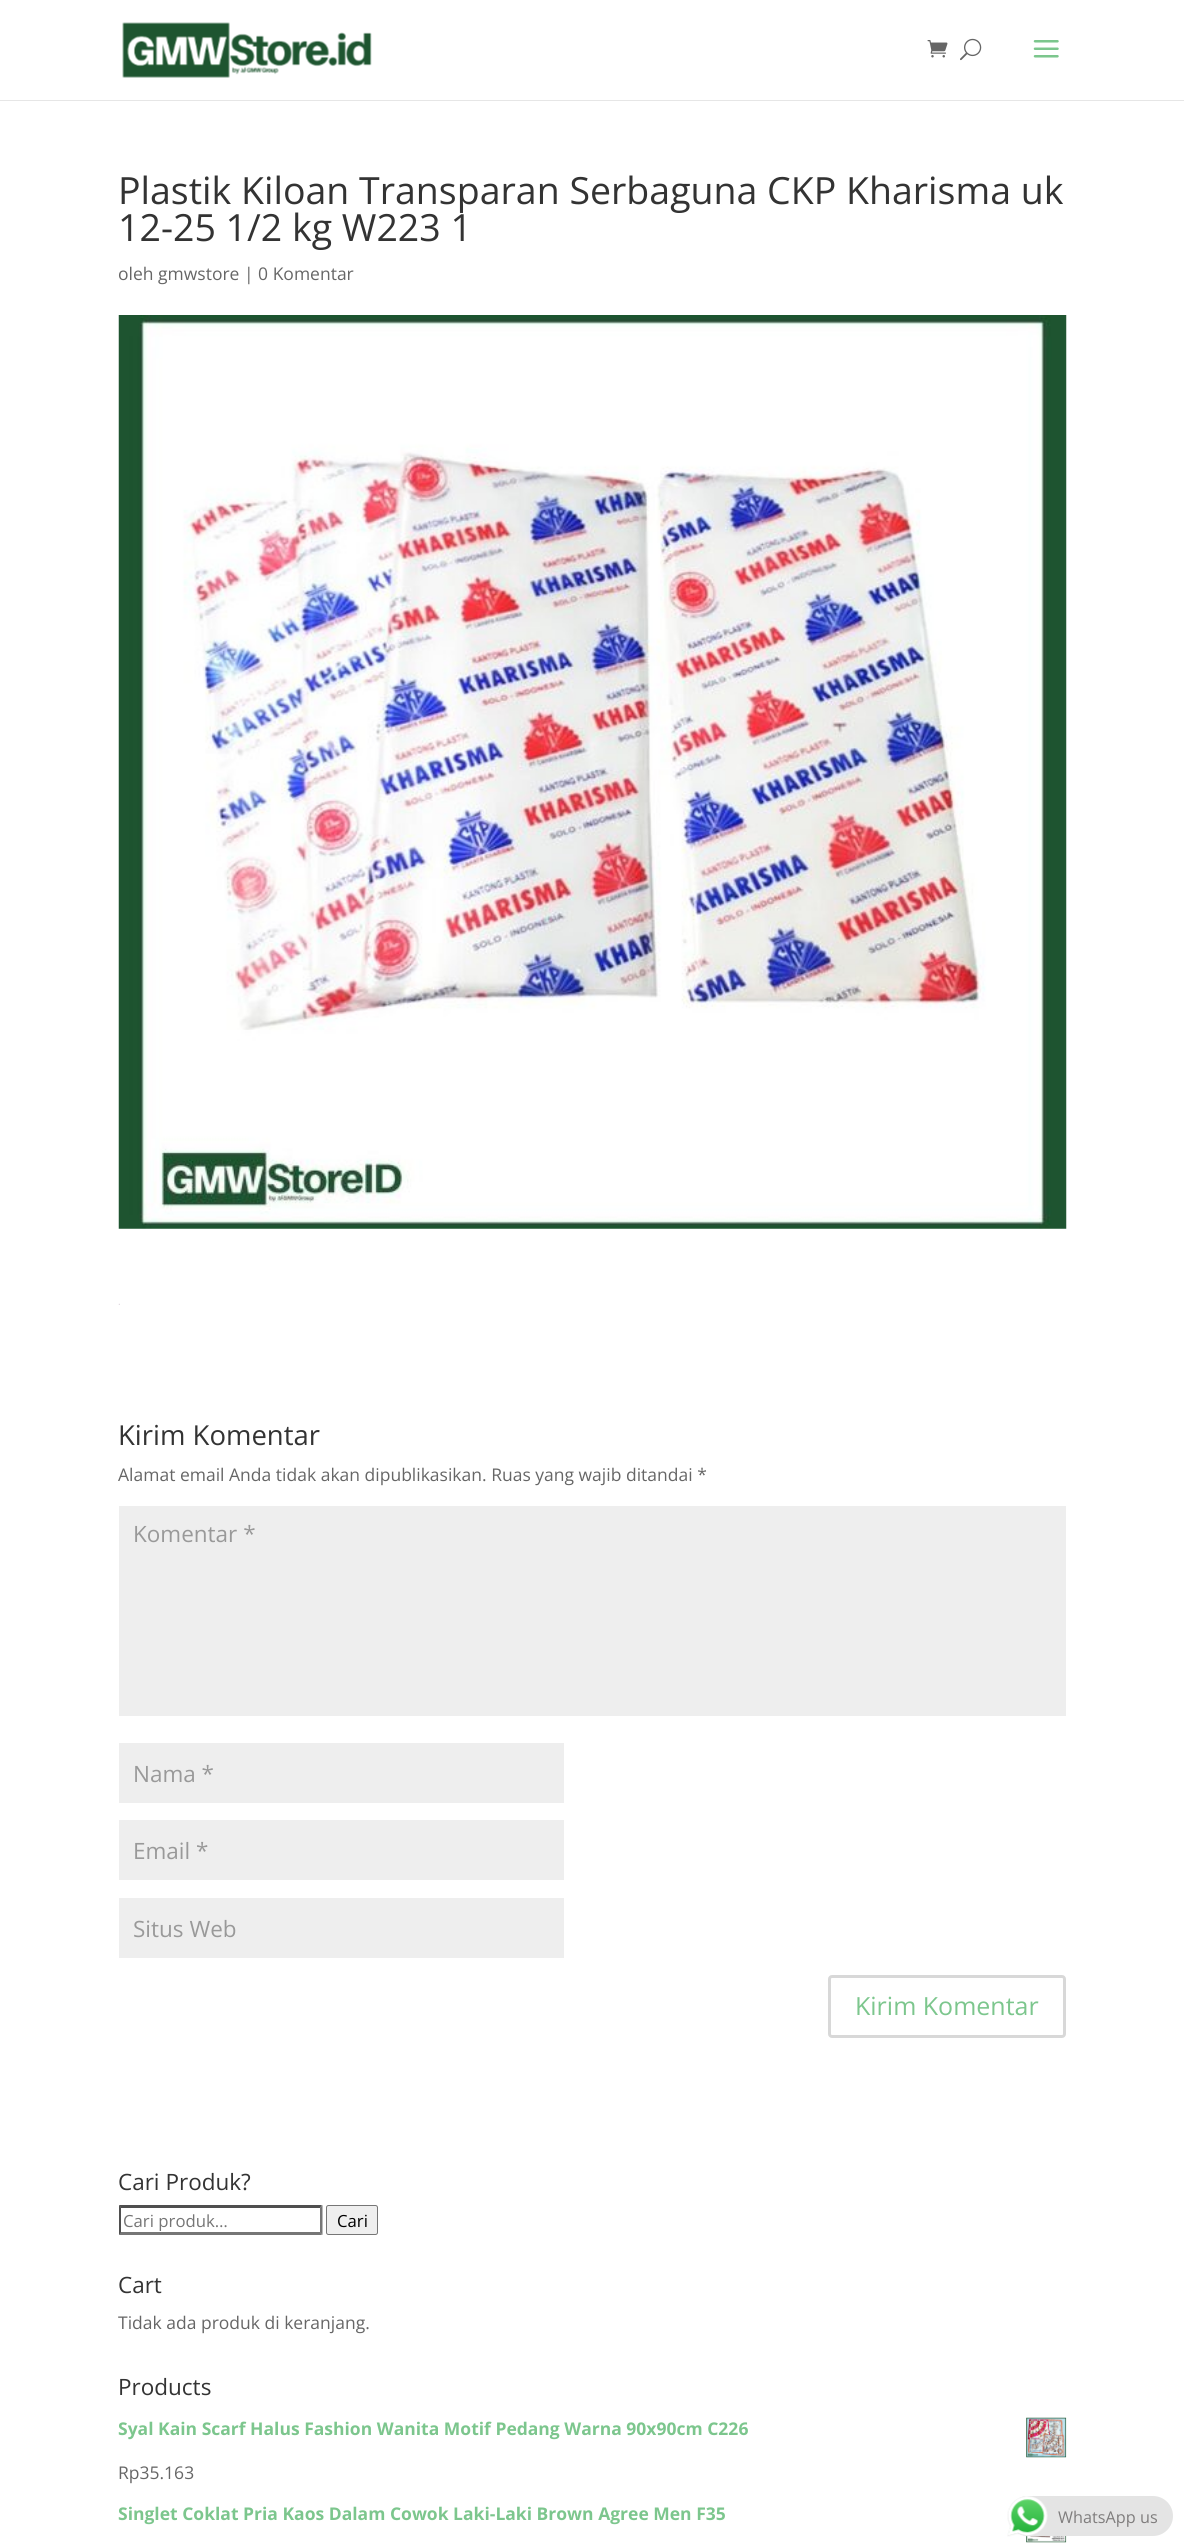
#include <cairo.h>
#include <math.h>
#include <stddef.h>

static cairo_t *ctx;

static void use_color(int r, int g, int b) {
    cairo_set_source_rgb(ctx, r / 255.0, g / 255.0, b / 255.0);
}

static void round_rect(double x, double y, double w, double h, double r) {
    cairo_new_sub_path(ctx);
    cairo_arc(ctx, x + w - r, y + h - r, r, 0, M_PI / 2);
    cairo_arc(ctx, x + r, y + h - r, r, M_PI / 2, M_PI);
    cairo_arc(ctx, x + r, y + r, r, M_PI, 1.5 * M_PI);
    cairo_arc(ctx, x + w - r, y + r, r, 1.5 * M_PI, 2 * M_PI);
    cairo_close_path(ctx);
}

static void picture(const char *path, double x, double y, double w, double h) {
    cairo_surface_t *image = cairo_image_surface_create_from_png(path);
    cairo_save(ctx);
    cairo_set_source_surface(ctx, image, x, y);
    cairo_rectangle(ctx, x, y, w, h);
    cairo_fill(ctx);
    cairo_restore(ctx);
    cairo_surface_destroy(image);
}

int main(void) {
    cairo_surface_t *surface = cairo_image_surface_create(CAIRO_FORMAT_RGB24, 1184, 2548);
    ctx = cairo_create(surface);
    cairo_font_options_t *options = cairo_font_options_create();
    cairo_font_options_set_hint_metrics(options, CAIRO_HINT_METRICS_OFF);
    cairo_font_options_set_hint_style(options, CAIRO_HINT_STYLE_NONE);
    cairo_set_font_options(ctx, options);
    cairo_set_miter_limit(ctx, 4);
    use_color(255, 255, 255);
    cairo_paint(ctx);
    use_color(230, 230, 230);
    cairo_rectangle(ctx, 0, 100, 1184, 1);
    cairo_fill(ctx);
    picture("img1.png", 122, 22, 250, 56);
    picture("img2.png", 927, 40, 21, 18);
    picture("img3.png", 960, 38, 22, 23);
    picture("img4.png", 1033, 40, 26, 18);
    cairo_select_font_face(ctx, "Open Sans", CAIRO_FONT_SLANT_NORMAL, CAIRO_FONT_WEIGHT_NORMAL);
    cairo_set_font_size(ctx, 37.5);
    use_color(51, 51, 51);
    cairo_move_to(ctx, 118, 204);
    cairo_show_text(ctx, "Plastik Kiloan Transparan Serbaguna CKP Kharisma uk");
    cairo_move_to(ctx, 118, 241);
    cairo_show_text(ctx, "12-25 1/2 kg W223 1");
    cairo_set_font_size(ctx, 17.5);
    use_color(102, 102, 102);
    cairo_move_to(ctx, 118, 280);
    cairo_show_text(ctx, "oleh gmwstore | 0 Komentar");
    picture("img5.png", 118, 315, 949, 914);
    picture("img6.png", 118, 1303, 2, 2);
    cairo_set_font_size(ctx, 27.5);
    use_color(51, 51, 51);
    cairo_move_to(ctx, 118, 1445);
    cairo_show_text(ctx, "Kirim Komentar");
    cairo_set_font_size(ctx, 17.5);
    use_color(102, 102, 102);
    cairo_move_to(ctx, 118, 1481);
    cairo_show_text(ctx, "Alamat email Anda tidak akan dipublikasikan. Ruas yang wajib ditandai *");
    use_color(238, 238, 238);
    cairo_rectangle(ctx, 119, 1506, 947, 210);
    cairo_fill(ctx);
    cairo_set_font_size(ctx, 22.5);
    use_color(153, 153, 153);
    cairo_move_to(ctx, 133, 1542);
    cairo_show_text(ctx, "Komentar *");
    use_color(238, 238, 238);
    cairo_rectangle(ctx, 119, 1743, 445, 60);
    cairo_fill(ctx);
    use_color(153, 153, 153);
    cairo_move_to(ctx, 133, 1782);
    cairo_show_text(ctx, "Nama *");
    use_color(238, 238, 238);
    cairo_rectangle(ctx, 119, 1820, 445, 60);
    cairo_fill(ctx);
    use_color(153, 153, 153);
    cairo_move_to(ctx, 133, 1859);
    cairo_show_text(ctx, "Email *");
    use_color(238, 238, 238);
    cairo_rectangle(ctx, 119, 1898, 445, 60);
    cairo_fill(ctx);
    use_color(153, 153, 153);
    cairo_move_to(ctx, 133, 1937);
    cairo_show_text(ctx, "Situs Web");
    round_rect(829.5, 1976.5, 235, 60, 2.5);
    use_color(216, 216, 216);
    cairo_set_line_width(ctx, 3);
    cairo_stroke(ctx);
    cairo_set_font_size(ctx, 25);
    use_color(124, 198, 141);
    cairo_move_to(ctx, 855, 2015);
    cairo_show_text(ctx, "Kirim Komentar");
    cairo_set_font_size(ctx, 22.5);
    use_color(51, 51, 51);
    cairo_move_to(ctx, 118, 2190);
    cairo_show_text(ctx, "Cari Produk?");
    use_color(79, 79, 79);
    cairo_new_path(ctx);
    cairo_move_to(ctx, 119, 2205);
    cairo_line_to(ctx, 322, 2205);
    cairo_line_to(ctx, 320, 2208);
    cairo_line_to(ctx, 121, 2208);
    cairo_close_path(ctx);
    cairo_fill(ctx);
    use_color(118, 118, 118);
    cairo_new_path(ctx);
    cairo_move_to(ctx, 322.5, 2205);
    cairo_line_to(ctx, 322.5, 2235);
    cairo_line_to(ctx, 320, 2232.5);
    cairo_line_to(ctx, 320, 2207.5);
    cairo_close_path(ctx);
    cairo_fill(ctx);
    cairo_new_path(ctx);
    cairo_move_to(ctx, 322, 2235);
    cairo_line_to(ctx, 119, 2235);
    cairo_line_to(ctx, 121, 2232);
    cairo_line_to(ctx, 320, 2232);
    cairo_close_path(ctx);
    cairo_fill(ctx);
    use_color(79, 79, 79);
    cairo_new_path(ctx);
    cairo_move_to(ctx, 119, 2235);
    cairo_line_to(ctx, 119, 2205);
    cairo_line_to(ctx, 121, 2207.5);
    cairo_line_to(ctx, 121, 2232.5);
    cairo_close_path(ctx);
    cairo_fill(ctx);
    cairo_set_font_size(ctx, 16.75);
    use_color(117, 117, 117);
    cairo_move_to(ctx, 123, 2227);
    cairo_show_text(ctx, "Cari produk…");
    use_color(239, 239, 239);
    round_rect(326.5, 2205.5, 51, 29, 2);
    cairo_fill_preserve(ctx);
    use_color(118, 118, 118);
    cairo_set_line_width(ctx, 1);
    cairo_stroke(ctx);
    use_color(0, 0, 0);
    cairo_move_to(ctx, 337, 2227);
    cairo_show_text(ctx, "Cari");
    cairo_set_font_size(ctx, 22.5);
    use_color(51, 51, 51);
    cairo_move_to(ctx, 118, 2293);
    cairo_show_text(ctx, "Cart");
    cairo_set_font_size(ctx, 17.5);
    use_color(102, 102, 102);
    cairo_move_to(ctx, 118, 2329);
    cairo_show_text(ctx, "Tidak ada produk di keranjang.");
    cairo_set_font_size(ctx, 22.5);
    use_color(51, 51, 51);
    cairo_move_to(ctx, 118, 2395);
    cairo_show_text(ctx, "Products");
    cairo_select_font_face(ctx, "Open Sans", CAIRO_FONT_SLANT_NORMAL, CAIRO_FONT_WEIGHT_BOLD);
    cairo_set_font_size(ctx, 17.5);
    use_color(124, 198, 141);
    cairo_move_to(ctx, 118, 2435);
    cairo_show_text(ctx, "Syal Kain Scarf Halus Fashion Wanita Motif Pedang Warna 90x90cm C226");
    picture("img7.png", 1026, 2417, 41, 41);
    cairo_select_font_face(ctx, "Open Sans", CAIRO_FONT_SLANT_NORMAL, CAIRO_FONT_WEIGHT_NORMAL);
    use_color(102, 102, 102);
    cairo_move_to(ctx, 118, 2479);
    cairo_show_text(ctx, "Rp35.163");
    cairo_select_font_face(ctx, "Open Sans", CAIRO_FONT_SLANT_NORMAL, CAIRO_FONT_WEIGHT_BOLD);
    use_color(124, 198, 141);
    cairo_move_to(ctx, 118, 2520);
    cairo_show_text(ctx, "Singlet Coklat Pria Kaos Dalam Cowok Laki-Laki Brown Agree Men F35");
    picture("img8.png", 1026, 2535, 41, 8);
    use_color(228, 228, 228);
    round_rect(1008, 2496, 165, 40, 20);
    cairo_fill(ctx);
    picture("img9.png", 1007, 2496, 41, 41);
    cairo_select_font_face(ctx, "Open Sans", CAIRO_FONT_SLANT_NORMAL, CAIRO_FONT_WEIGHT_NORMAL);
    cairo_set_font_size(ctx, 16.25);
    use_color(127, 125, 125);
    cairo_move_to(ctx, 1058, 2523);
    cairo_show_text(ctx, "WhatsApp us");
    cairo_surface_write_to_png(surface, "result.png");
    cairo_font_options_destroy(options);
    cairo_destroy(ctx);
    cairo_surface_destroy(surface);
    return 0;
}
